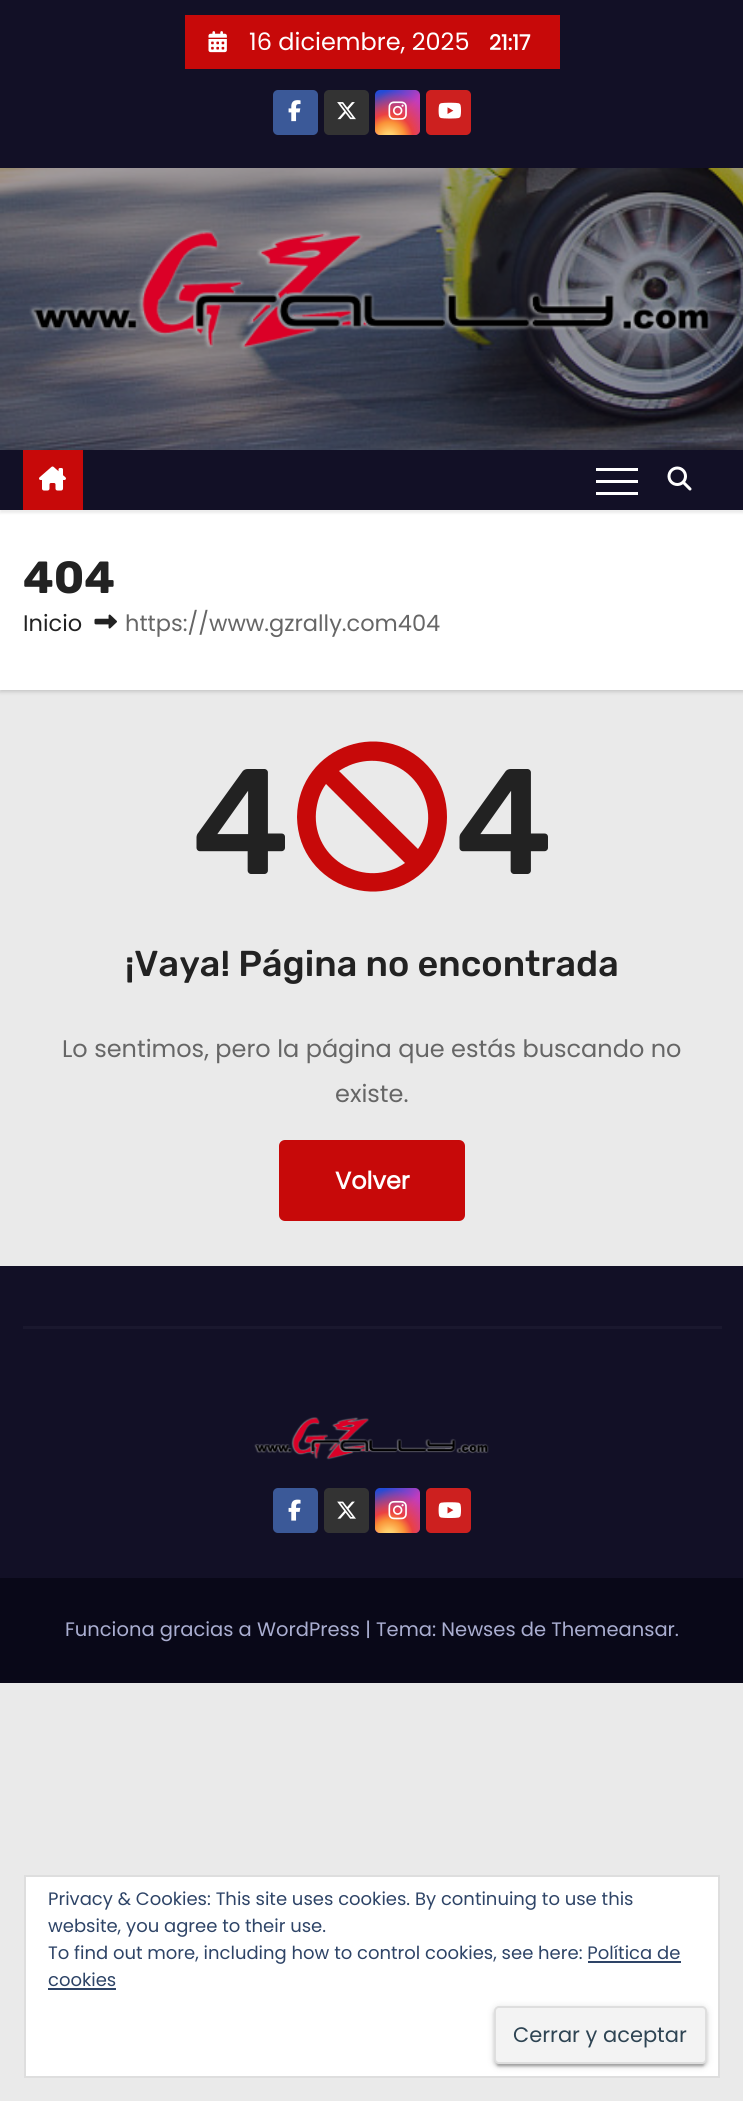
#include <cairo.h>
#include <math.h>
#include <stddef.h>

static cairo_t *ctx;

static void use_color(int r, int g, int b) {
    cairo_set_source_rgb(ctx, r / 255.0, g / 255.0, b / 255.0);
}

static void round_rect(double x, double y, double w, double h, double r) {
    cairo_new_sub_path(ctx);
    cairo_arc(ctx, x + w - r, y + h - r, r, 0, M_PI / 2);
    cairo_arc(ctx, x + r, y + h - r, r, M_PI / 2, M_PI);
    cairo_arc(ctx, x + r, y + r, r, M_PI, 1.5 * M_PI);
    cairo_arc(ctx, x + w - r, y + r, r, 1.5 * M_PI, 2 * M_PI);
    cairo_close_path(ctx);
}

static void shadow(double x, double y, double w, double h, double r, double blur, double alpha) {
    cairo_push_group_with_content(ctx, CAIRO_CONTENT_ALPHA);
    cairo_set_operator(ctx, CAIRO_OPERATOR_SOURCE);
    for (int i = 15; i >= -15 && fmin(w, h) + blur * i / 3 > 0; i -= 2) {
        double e = blur * i / 6;
        cairo_set_source_rgba(ctx, 0, 0, 0, alpha * erfc((i - 1) / 8.5) / 2);
        round_rect(x - e, y - e, w + 2 * e, h + 2 * e, fmax(0, fmin(r + e + blur * .6, fmin(w, h) / 2 + e)));
        cairo_fill(ctx);
    }
    cairo_pattern_t *soft = cairo_pop_group(ctx);
    cairo_mask(ctx, soft);
    cairo_pattern_destroy(soft);
}

static void picture(const char *path, double x, double y, double w, double h) {
    cairo_surface_t *image = cairo_image_surface_create_from_png(path);
    cairo_save(ctx);
    cairo_set_source_surface(ctx, image, x, y);
    cairo_rectangle(ctx, x, y, w, h);
    cairo_fill(ctx);
    cairo_restore(ctx);
    cairo_surface_destroy(image);
}

int main(void) {
    cairo_surface_t *surface = cairo_image_surface_create(CAIRO_FORMAT_RGB24, 743, 2101);
    ctx = cairo_create(surface);
    cairo_font_options_t *options = cairo_font_options_create();
    cairo_font_options_set_hint_metrics(options, CAIRO_HINT_METRICS_OFF);
    cairo_font_options_set_hint_style(options, CAIRO_HINT_STYLE_NONE);
    cairo_set_font_options(ctx, options);
    cairo_set_miter_limit(ctx, 4);
    cairo_pattern_t *gradient;
    use_color(234, 234, 234);
    cairo_paint(ctx);
    use_color(18, 16, 38);
    cairo_rectangle(ctx, 0, 0, 743, 168);
    cairo_fill(ctx);
    use_color(199, 9, 9);
    cairo_rectangle(ctx, 185, 15, 375, 54);
    cairo_fill(ctx);
    picture("img1.png", 208, 31, 19, 22);
    cairo_select_font_face(ctx, "Poppins", CAIRO_FONT_SLANT_NORMAL, CAIRO_FONT_WEIGHT_NORMAL);
    cairo_set_font_size(ctx, 24);
    use_color(255, 255, 255);
    cairo_move_to(ctx, 249, 50);
    cairo_show_text(ctx, "16 diciembre, 2025");
    cairo_select_font_face(ctx, "Poppins", CAIRO_FONT_SLANT_NORMAL, CAIRO_FONT_WEIGHT_BOLD);
    cairo_set_font_size(ctx, 21);
    cairo_move_to(ctx, 489, 50);
    cairo_show_text(ctx, "21:17");
    use_color(59, 89, 152);
    round_rect(273, 90, 45, 45, 5);
    cairo_fill(ctx);
    picture("img2.png", 288, 100, 13, 22);
    use_color(51, 51, 51);
    round_rect(324, 90, 45, 45, 5);
    cairo_fill(ctx);
    picture("img3.png", 337, 102, 19, 18);
    gradient = cairo_pattern_create_linear(375, 90, 420, 135);
    cairo_pattern_add_color_stop_rgba(gradient, 0.12, 0.137, 0.294, 0.843, 1);
    cairo_pattern_add_color_stop_rgba(gradient, 0.58, 0.765, 0.235, 0.745, 1);
    cairo_set_source(ctx, gradient);
    cairo_pattern_destroy(gradient);
    round_rect(375, 90, 45, 45, 5);
    cairo_fill(ctx);
    gradient = cairo_pattern_create_radial(389, 138, 0, 389, 138, 57);
    cairo_pattern_add_color_stop_rgba(gradient, 0, 1, 0.882, 0.49, 1);
    cairo_pattern_add_color_stop_rgba(gradient, 0.1, 1, 0.804, 0.412, 1);
    cairo_pattern_add_color_stop_rgba(gradient, 0.28, 0.98, 0.569, 0.216, 1);
    cairo_pattern_add_color_stop_rgba(gradient, 0.42, 0.922, 0.255, 0.255, 1);
    cairo_pattern_add_color_stop_rgba(gradient, 0.82, 0.922, 0.255, 0.255, 0);
    cairo_set_source(ctx, gradient);
    cairo_pattern_destroy(gradient);
    round_rect(375, 90, 45, 45, 5);
    cairo_fill(ctx);
    picture("img4.png", 388, 101, 19, 19);
    use_color(205, 32, 31);
    round_rect(426, 90, 45, 45, 5);
    cairo_fill(ctx);
    picture("img5.png", 438, 102, 23, 17);
    picture("img6.png", 0, 168, 743, 282);
    picture("img7.png", 29, 229, 683, 121);
    use_color(0, 0, 0);
    shadow(0, 512, 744, 180, 0, 2, 0.15);
    use_color(255, 255, 255);
    cairo_rectangle(ctx, 0, 510, 743, 180);
    cairo_fill(ctx);
    use_color(0, 0, 0);
    shadow(0, 453, 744, 60, 0, 1.5, 0.08);
    use_color(18, 16, 38);
    cairo_rectangle(ctx, 0, 450, 743, 60);
    cairo_fill(ctx);
    use_color(199, 9, 9);
    cairo_rectangle(ctx, 23, 450, 60, 60);
    cairo_fill(ctx);
    picture("img8.png", 39, 466, 27, 25);
    use_color(255, 255, 255);
    cairo_rectangle(ctx, 596, 468, 42, 3);
    cairo_fill(ctx);
    cairo_rectangle(ctx, 596, 480, 42, 3);
    cairo_fill(ctx);
    cairo_rectangle(ctx, 596, 492, 42, 3);
    cairo_fill(ctx);
    picture("img9.png", 667, 466, 25, 25);
    cairo_select_font_face(ctx, "Rubik", CAIRO_FONT_SLANT_NORMAL, CAIRO_FONT_WEIGHT_BOLD);
    cairo_set_font_size(ctx, 45);
    use_color(34, 34, 34);
    cairo_move_to(ctx, 23, 593);
    cairo_show_text(ctx, "404");
    cairo_select_font_face(ctx, "Poppins", CAIRO_FONT_SLANT_NORMAL, CAIRO_FONT_WEIGHT_NORMAL);
    cairo_set_font_size(ctx, 22.5);
    cairo_move_to(ctx, 23, 631);
    cairo_show_text(ctx, "Inicio");
    picture("img10.png", 94, 614, 23, 15);
    use_color(102, 102, 102);
    cairo_move_to(ctx, 125, 631);
    cairo_show_text(ctx, "https://www.gzrally.com404");
    cairo_select_font_face(ctx, "Rubik Medium", CAIRO_FONT_SLANT_NORMAL, CAIRO_FONT_WEIGHT_NORMAL);
    cairo_set_font_size(ctx, 150);
    use_color(34, 34, 34);
    cairo_move_to(ctx, 192, 874);
    cairo_show_text(ctx, "4");
    use_color(199, 9, 9);
    cairo_new_path(ctx);
    cairo_move_to(ctx, 405, 863);
    cairo_line_to(ctx, 326, 784);
    cairo_curve_to(ctx, 320, 792, 317, 802, 316, 812);
    cairo_curve_to(ctx, 312, 860, 366, 890, 405, 863);
    cairo_close_path(ctx);
    cairo_move_to(ctx, 418, 849);
    cairo_curve_to(ctx, 445, 811, 415, 757, 367, 761);
    cairo_curve_to(ctx, 357, 762, 348, 765, 339, 771);
    cairo_close_path(ctx);
    cairo_move_to(ctx, 297, 817);
    cairo_curve_to(ctx, 298, 745, 388, 714, 432, 771);
    cairo_curve_to(ctx, 442, 784, 447, 800, 447, 817);
    cairo_curve_to(ctx, 447, 833, 442, 849, 432, 862);
    cairo_curve_to(ctx, 388, 919, 298, 888, 297, 817);
    cairo_close_path(ctx);
    cairo_fill(ctx);
    use_color(34, 34, 34);
    cairo_move_to(ctx, 455, 874);
    cairo_show_text(ctx, "4");
    cairo_set_font_size(ctx, 36);
    cairo_move_to(ctx, 125, 976);
    cairo_show_text(ctx, "¡Vaya! Página no encontrada");
    cairo_select_font_face(ctx, "Poppins", CAIRO_FONT_SLANT_NORMAL, CAIRO_FONT_WEIGHT_NORMAL);
    cairo_set_font_size(ctx, 24);
    use_color(102, 102, 102);
    cairo_move_to(ctx, 62, 1057);
    cairo_show_text(ctx, "Lo sentimos, pero la página que estás buscando no");
    cairo_move_to(ctx, 335, 1102);
    cairo_show_text(ctx, "existe.");
    use_color(199, 9, 9);
    round_rect(280.5, 1141.5, 183, 78, 4.5);
    cairo_fill_preserve(ctx);
    cairo_set_line_width(ctx, 3);
    cairo_stroke(ctx);
    cairo_select_font_face(ctx, "Poppins", CAIRO_FONT_SLANT_NORMAL, CAIRO_FONT_WEIGHT_BOLD);
    use_color(255, 255, 255);
    cairo_move_to(ctx, 335, 1189);
    cairo_show_text(ctx, "Volver");
    use_color(18, 16, 38);
    cairo_rectangle(ctx, 0, 1266, 743, 312);
    cairo_fill(ctx);
    use_color(26, 24, 46);
    cairo_rectangle(ctx, 23, 1326, 699, 3);
    cairo_fill(ctx);
    picture("img11.png", 254, 1417, 235, 43);
    use_color(59, 89, 152);
    round_rect(273, 1488, 45, 45, 5);
    cairo_fill(ctx);
    picture("img12.png", 288, 1499, 13, 22);
    use_color(51, 51, 51);
    round_rect(324, 1488, 45, 45, 5);
    cairo_fill(ctx);
    picture("img13.png", 337, 1501, 19, 18);
    gradient = cairo_pattern_create_linear(375, 1488, 420, 1533);
    cairo_pattern_add_color_stop_rgba(gradient, 0.12, 0.137, 0.294, 0.843, 1);
    cairo_pattern_add_color_stop_rgba(gradient, 0.58, 0.765, 0.235, 0.745, 1);
    cairo_set_source(ctx, gradient);
    cairo_pattern_destroy(gradient);
    round_rect(375, 1488, 45, 45, 5);
    cairo_fill(ctx);
    gradient = cairo_pattern_create_radial(389, 1536, 0, 389, 1536, 57);
    cairo_pattern_add_color_stop_rgba(gradient, 0, 1, 0.882, 0.49, 1);
    cairo_pattern_add_color_stop_rgba(gradient, 0.1, 1, 0.804, 0.412, 1);
    cairo_pattern_add_color_stop_rgba(gradient, 0.28, 0.98, 0.569, 0.216, 1);
    cairo_pattern_add_color_stop_rgba(gradient, 0.42, 0.922, 0.255, 0.255, 1);
    cairo_pattern_add_color_stop_rgba(gradient, 0.82, 0.922, 0.255, 0.255, 0);
    cairo_set_source(ctx, gradient);
    cairo_pattern_destroy(gradient);
    round_rect(375, 1488, 45, 45, 5);
    cairo_fill(ctx);
    picture("img14.png", 388, 1500, 19, 20);
    use_color(205, 32, 31);
    round_rect(426, 1488, 45, 45, 5);
    cairo_fill(ctx);
    picture("img15.png", 438, 1502, 23, 16);
    use_color(9, 8, 24);
    cairo_rectangle(ctx, 0, 1578, 743, 105);
    cairo_fill(ctx);
    cairo_select_font_face(ctx, "Poppins", CAIRO_FONT_SLANT_NORMAL, CAIRO_FONT_WEIGHT_NORMAL);
    cairo_set_font_size(ctx, 19.5);
    use_color(170, 174, 209);
    cairo_move_to(ctx, 65, 1636);
    cairo_show_text(ctx, "Funciona gracias a WordPress | Tema: Newses de Themeansar.");
    use_color(255, 255, 255);
    cairo_rectangle(ctx, 25, 1876, 694, 201);
    cairo_fill_preserve(ctx);
    use_color(222, 222, 222);
    cairo_set_line_width(ctx, 2);
    cairo_stroke(ctx);
    cairo_set_font_size(ctx, 18);
    use_color(46, 68, 103);
    cairo_move_to(ctx, 48, 1905);
    cairo_show_text(ctx, "Privacy & Cookies: This site uses cookies. By continuing to use this");
    cairo_move_to(ctx, 48, 1932);
    cairo_show_text(ctx, "website, you agree to their use.");
    cairo_move_to(ctx, 48, 1959);
    cairo_show_text(ctx, "To find out more, including how to control cookies, see here: Política de");
    cairo_move_to(ctx, 48, 1986);
    cairo_show_text(ctx, "cookies");
    cairo_rectangle(ctx, 588, 1961, 93, 2);
    cairo_fill(ctx);
    cairo_rectangle(ctx, 48, 1988, 68, 2);
    cairo_fill(ctx);
    use_color(0, 0, 0);
    shadow(494, 2007, 213, 59, 5, 4, 0.12);
    shadow(497, 2013, 207, 53, 1.5, 1, 0.2);
    shadow(494, 2009, 213, 58, 5, 1.5, 0.14);
    use_color(243, 243, 243);
    round_rect(495, 2007, 211, 56, 4);
    cairo_fill_preserve(ctx);
    use_color(222, 222, 222);
    cairo_stroke(ctx);
    cairo_set_font_size(ctx, 21);
    use_color(46, 68, 83);
    cairo_move_to(ctx, 513, 2042);
    cairo_show_text(ctx, "Cerrar y aceptar");
    cairo_surface_write_to_png(surface, "result.png");
    cairo_font_options_destroy(options);
    cairo_destroy(ctx);
    cairo_surface_destroy(surface);
    return 0;
}
